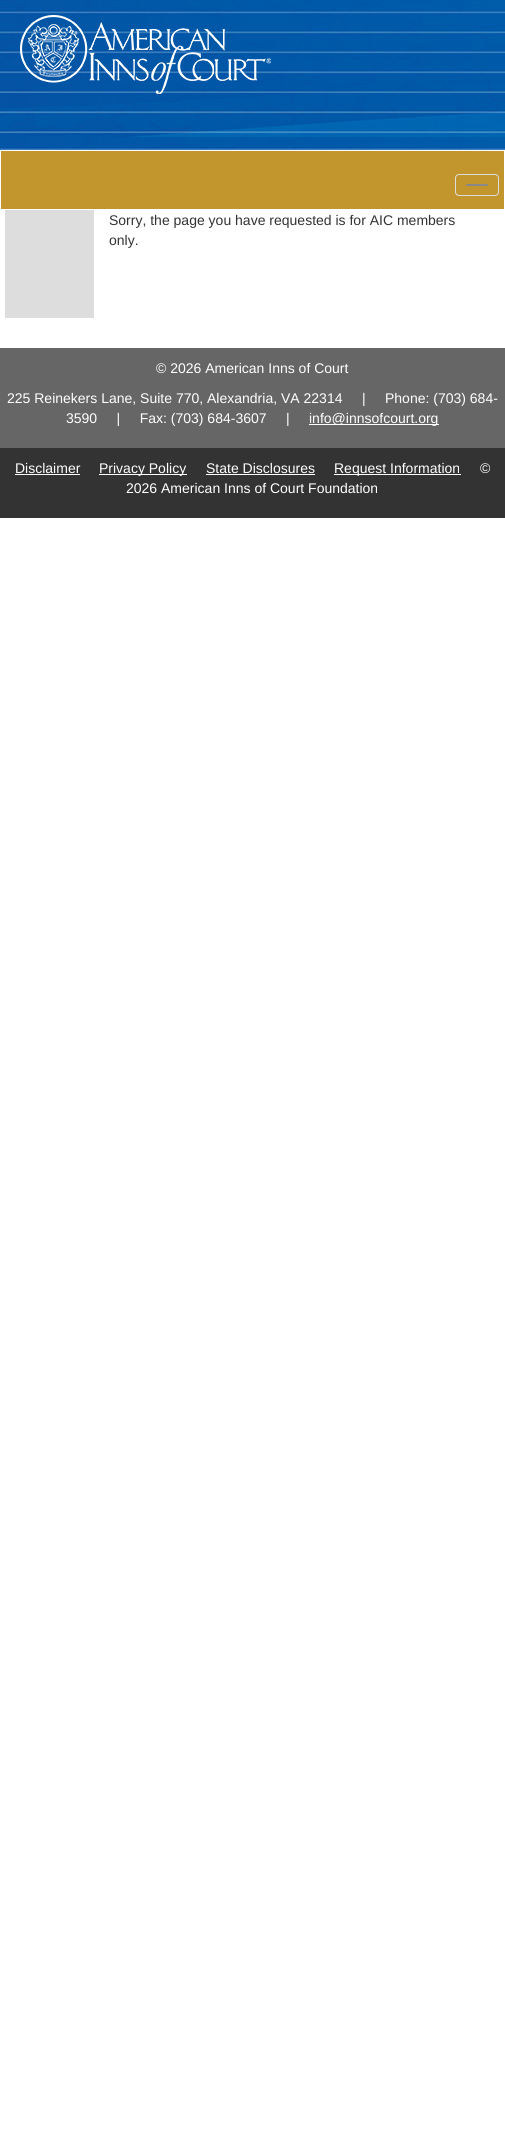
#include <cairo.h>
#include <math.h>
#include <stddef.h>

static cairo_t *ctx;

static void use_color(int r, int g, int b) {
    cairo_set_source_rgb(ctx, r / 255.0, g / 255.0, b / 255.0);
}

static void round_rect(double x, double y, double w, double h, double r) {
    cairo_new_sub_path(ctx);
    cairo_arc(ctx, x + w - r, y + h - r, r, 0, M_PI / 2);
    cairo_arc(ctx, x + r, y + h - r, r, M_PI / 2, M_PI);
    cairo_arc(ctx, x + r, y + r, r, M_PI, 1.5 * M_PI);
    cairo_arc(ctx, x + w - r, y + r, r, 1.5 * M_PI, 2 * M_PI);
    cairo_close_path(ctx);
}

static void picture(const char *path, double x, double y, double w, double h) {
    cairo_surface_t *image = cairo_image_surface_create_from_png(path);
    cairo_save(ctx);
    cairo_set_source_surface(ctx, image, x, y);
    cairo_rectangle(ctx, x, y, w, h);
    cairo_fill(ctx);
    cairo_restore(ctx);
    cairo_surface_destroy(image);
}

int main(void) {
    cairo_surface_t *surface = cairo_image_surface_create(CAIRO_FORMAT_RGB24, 505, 2149);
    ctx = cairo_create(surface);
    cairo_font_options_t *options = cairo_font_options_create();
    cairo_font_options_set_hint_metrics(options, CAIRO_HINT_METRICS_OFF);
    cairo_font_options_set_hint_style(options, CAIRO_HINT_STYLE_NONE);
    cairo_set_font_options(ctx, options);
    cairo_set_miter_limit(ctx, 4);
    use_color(255, 255, 255);
    cairo_paint(ctx);
    picture("img1.png", 0, 0, 505, 150);
    picture("img2.png", 20, 15, 251, 79);
    use_color(195, 150, 45);
    cairo_rectangle(ctx, 1, 151, 503, 58);
    cairo_fill(ctx);
    round_rect(455.5, 174.5, 43, 21, 3.5);
    use_color(221, 221, 221);
    cairo_set_line_width(ctx, 1);
    cairo_stroke(ctx);
    use_color(136, 136, 136);
    round_rect(466, 184, 22, 2, 1);
    cairo_fill(ctx);
    use_color(221, 221, 221);
    cairo_rectangle(ctx, 5, 210, 89, 108);
    cairo_fill(ctx);
    cairo_select_font_face(ctx, "Liberation Sans", CAIRO_FONT_SLANT_NORMAL, CAIRO_FONT_WEIGHT_NORMAL);
    cairo_set_font_size(ctx, 14);
    use_color(51, 51, 51);
    cairo_move_to(ctx, 109, 225);
    cairo_show_text(ctx, "Sorry, the page you have requested is for AIC members");
    cairo_move_to(ctx, 109, 245);
    cairo_show_text(ctx, "only.");
    use_color(102, 102, 102);
    cairo_rectangle(ctx, 0, 348, 505, 100);
    cairo_fill(ctx);
    use_color(255, 255, 255);
    cairo_move_to(ctx, 156, 373);
    cairo_show_text(ctx, "© 2026 American Inns of Court");
    cairo_move_to(ctx, 7, 403);
    cairo_show_text(ctx, "225 Reinekers Lane, Suite 770, Alexandria, VA 22314     |     Phone: (703) 684-");
    cairo_move_to(ctx, 66, 423);
    cairo_show_text(ctx, "3590     |     Fax: (703) 684-3607     |");
    cairo_rectangle(ctx, 309, 424, 130, 1);
    cairo_fill(ctx);
    cairo_move_to(ctx, 309, 423);
    cairo_show_text(ctx, "info@innsofcourt.org");
    use_color(51, 51, 51);
    cairo_rectangle(ctx, 0, 448, 505, 70);
    cairo_fill(ctx);
    use_color(255, 255, 255);
    cairo_move_to(ctx, 15, 473);
    cairo_show_text(ctx, "Disclaimer");
    cairo_rectangle(ctx, 15, 474, 65, 1);
    cairo_fill(ctx);
    cairo_rectangle(ctx, 99, 474, 88, 1);
    cairo_fill(ctx);
    cairo_move_to(ctx, 99, 473);
    cairo_show_text(ctx, "Privacy Policy");
    cairo_move_to(ctx, 206, 473);
    cairo_show_text(ctx, "State Disclosures");
    cairo_rectangle(ctx, 206, 474, 109, 1);
    cairo_fill(ctx);
    cairo_rectangle(ctx, 334, 474, 127, 1);
    cairo_fill(ctx);
    cairo_move_to(ctx, 334, 473);
    cairo_show_text(ctx, "Request Information");
    cairo_move_to(ctx, 480, 473);
    cairo_show_text(ctx, "©");
    cairo_move_to(ctx, 126, 493);
    cairo_show_text(ctx, "2026 American Inns of Court Foundation");
    cairo_surface_write_to_png(surface, "result.png");
    cairo_font_options_destroy(options);
    cairo_destroy(ctx);
    cairo_surface_destroy(surface);
    return 0;
}
